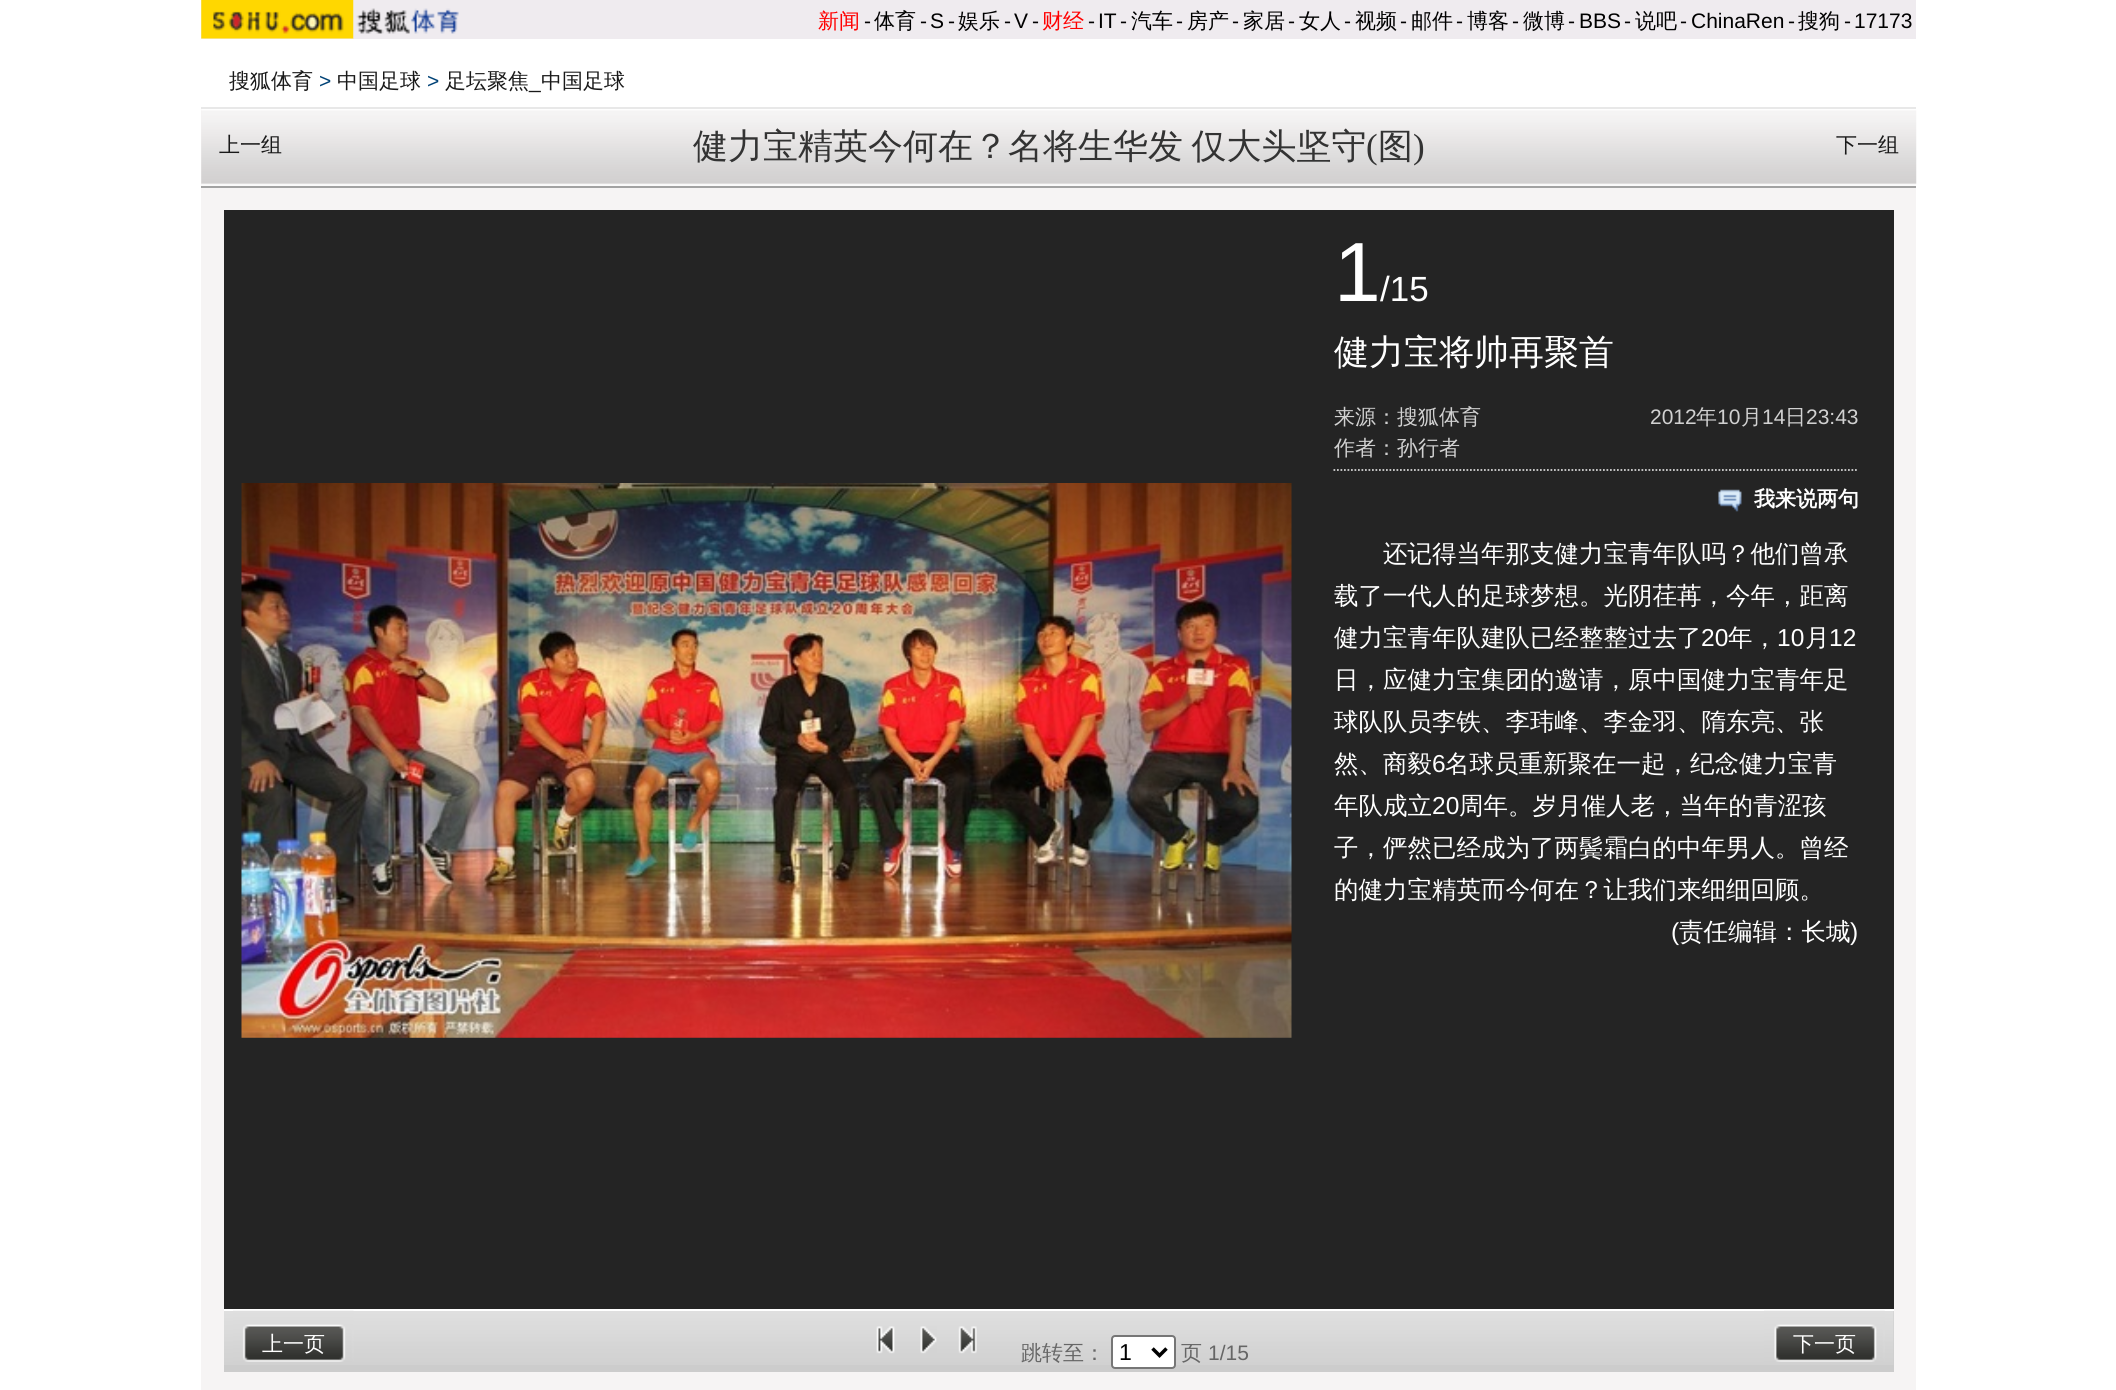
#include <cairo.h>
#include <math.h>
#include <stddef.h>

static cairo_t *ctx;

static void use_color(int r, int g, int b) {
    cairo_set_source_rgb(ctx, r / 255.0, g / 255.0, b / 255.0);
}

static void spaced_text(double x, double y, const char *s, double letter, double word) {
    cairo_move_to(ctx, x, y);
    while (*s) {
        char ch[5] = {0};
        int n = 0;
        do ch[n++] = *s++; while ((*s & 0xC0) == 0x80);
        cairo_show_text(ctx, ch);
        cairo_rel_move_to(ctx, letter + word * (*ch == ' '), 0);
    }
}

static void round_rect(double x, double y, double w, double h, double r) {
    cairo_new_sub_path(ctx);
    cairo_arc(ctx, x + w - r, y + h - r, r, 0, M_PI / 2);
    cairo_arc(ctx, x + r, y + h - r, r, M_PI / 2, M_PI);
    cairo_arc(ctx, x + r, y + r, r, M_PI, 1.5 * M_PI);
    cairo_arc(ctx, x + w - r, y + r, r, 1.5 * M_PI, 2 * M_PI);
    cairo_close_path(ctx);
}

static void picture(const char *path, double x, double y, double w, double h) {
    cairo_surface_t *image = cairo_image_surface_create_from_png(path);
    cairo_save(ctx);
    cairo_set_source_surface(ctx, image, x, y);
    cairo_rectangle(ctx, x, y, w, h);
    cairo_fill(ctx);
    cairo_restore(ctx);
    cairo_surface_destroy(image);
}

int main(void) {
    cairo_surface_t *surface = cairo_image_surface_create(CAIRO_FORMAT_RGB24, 2116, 1390);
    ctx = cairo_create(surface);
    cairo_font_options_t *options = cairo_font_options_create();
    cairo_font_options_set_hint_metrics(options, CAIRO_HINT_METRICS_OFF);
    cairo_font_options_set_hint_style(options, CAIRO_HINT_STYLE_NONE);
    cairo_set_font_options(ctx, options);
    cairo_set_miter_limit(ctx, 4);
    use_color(255, 255, 255);
    cairo_paint(ctx);
    use_color(239, 235, 239);
    cairo_rectangle(ctx, 201, 0, 1715, 39);
    cairo_fill(ctx);
    picture("img1.png", 201, 0, 153, 39);
    picture("img2.png", 353, 0, 106, 39);
    cairo_select_font_face(ctx, "WenQuanYi Zen Hei Medium", CAIRO_FONT_SLANT_NORMAL, CAIRO_FONT_WEIGHT_NORMAL);
    cairo_set_font_size(ctx, 21);
    use_color(255, 0, 0);
    cairo_move_to(ctx, 818, 28);
    cairo_show_text(ctx, "新闻");
    cairo_select_font_face(ctx, "Liberation Sans", CAIRO_FONT_SLANT_NORMAL, CAIRO_FONT_WEIGHT_NORMAL);
    use_color(0, 0, 0);
    cairo_move_to(ctx, 864, 28);
    cairo_show_text(ctx, "-");
    cairo_select_font_face(ctx, "WenQuanYi Zen Hei Medium", CAIRO_FONT_SLANT_NORMAL, CAIRO_FONT_WEIGHT_NORMAL);
    cairo_move_to(ctx, 874, 28);
    cairo_show_text(ctx, "体育");
    cairo_select_font_face(ctx, "Liberation Sans", CAIRO_FONT_SLANT_NORMAL, CAIRO_FONT_WEIGHT_NORMAL);
    cairo_move_to(ctx, 920, 28);
    cairo_show_text(ctx, "-");
    cairo_move_to(ctx, 930, 28);
    cairo_show_text(ctx, "S");
    cairo_move_to(ctx, 948, 28);
    cairo_show_text(ctx, "-");
    cairo_select_font_face(ctx, "WenQuanYi Zen Hei Medium", CAIRO_FONT_SLANT_NORMAL, CAIRO_FONT_WEIGHT_NORMAL);
    cairo_move_to(ctx, 958, 28);
    cairo_show_text(ctx, "娱乐");
    cairo_select_font_face(ctx, "Liberation Sans", CAIRO_FONT_SLANT_NORMAL, CAIRO_FONT_WEIGHT_NORMAL);
    cairo_move_to(ctx, 1004, 28);
    cairo_show_text(ctx, "-");
    cairo_move_to(ctx, 1014, 28);
    cairo_show_text(ctx, "V");
    cairo_move_to(ctx, 1032, 28);
    cairo_show_text(ctx, "-");
    cairo_select_font_face(ctx, "WenQuanYi Zen Hei Medium", CAIRO_FONT_SLANT_NORMAL, CAIRO_FONT_WEIGHT_NORMAL);
    use_color(255, 0, 0);
    cairo_move_to(ctx, 1042, 28);
    cairo_show_text(ctx, "财经");
    cairo_select_font_face(ctx, "Liberation Sans", CAIRO_FONT_SLANT_NORMAL, CAIRO_FONT_WEIGHT_NORMAL);
    use_color(0, 0, 0);
    cairo_move_to(ctx, 1088, 28);
    cairo_show_text(ctx, "-");
    cairo_move_to(ctx, 1098, 28);
    cairo_show_text(ctx, "IT");
    cairo_move_to(ctx, 1120, 28);
    cairo_show_text(ctx, "-");
    cairo_select_font_face(ctx, "WenQuanYi Zen Hei Medium", CAIRO_FONT_SLANT_NORMAL, CAIRO_FONT_WEIGHT_NORMAL);
    cairo_move_to(ctx, 1131, 28);
    cairo_show_text(ctx, "汽车");
    cairo_select_font_face(ctx, "Liberation Sans", CAIRO_FONT_SLANT_NORMAL, CAIRO_FONT_WEIGHT_NORMAL);
    cairo_move_to(ctx, 1176, 28);
    cairo_show_text(ctx, "-");
    cairo_select_font_face(ctx, "WenQuanYi Zen Hei Medium", CAIRO_FONT_SLANT_NORMAL, CAIRO_FONT_WEIGHT_NORMAL);
    cairo_move_to(ctx, 1187, 28);
    cairo_show_text(ctx, "房产");
    cairo_select_font_face(ctx, "Liberation Sans", CAIRO_FONT_SLANT_NORMAL, CAIRO_FONT_WEIGHT_NORMAL);
    cairo_move_to(ctx, 1232, 28);
    cairo_show_text(ctx, "-");
    cairo_select_font_face(ctx, "WenQuanYi Zen Hei Medium", CAIRO_FONT_SLANT_NORMAL, CAIRO_FONT_WEIGHT_NORMAL);
    cairo_move_to(ctx, 1243, 28);
    cairo_show_text(ctx, "家居");
    cairo_select_font_face(ctx, "Liberation Sans", CAIRO_FONT_SLANT_NORMAL, CAIRO_FONT_WEIGHT_NORMAL);
    cairo_move_to(ctx, 1288, 28);
    cairo_show_text(ctx, "-");
    cairo_select_font_face(ctx, "WenQuanYi Zen Hei Medium", CAIRO_FONT_SLANT_NORMAL, CAIRO_FONT_WEIGHT_NORMAL);
    cairo_move_to(ctx, 1299, 28);
    cairo_show_text(ctx, "女人");
    cairo_select_font_face(ctx, "Liberation Sans", CAIRO_FONT_SLANT_NORMAL, CAIRO_FONT_WEIGHT_NORMAL);
    cairo_move_to(ctx, 1344, 28);
    cairo_show_text(ctx, "-");
    cairo_select_font_face(ctx, "WenQuanYi Zen Hei Medium", CAIRO_FONT_SLANT_NORMAL, CAIRO_FONT_WEIGHT_NORMAL);
    cairo_move_to(ctx, 1355, 28);
    cairo_show_text(ctx, "视频");
    cairo_select_font_face(ctx, "Liberation Sans", CAIRO_FONT_SLANT_NORMAL, CAIRO_FONT_WEIGHT_NORMAL);
    cairo_move_to(ctx, 1400, 28);
    cairo_show_text(ctx, "-");
    cairo_select_font_face(ctx, "WenQuanYi Zen Hei Medium", CAIRO_FONT_SLANT_NORMAL, CAIRO_FONT_WEIGHT_NORMAL);
    cairo_move_to(ctx, 1411, 28);
    cairo_show_text(ctx, "邮件");
    cairo_select_font_face(ctx, "Liberation Sans", CAIRO_FONT_SLANT_NORMAL, CAIRO_FONT_WEIGHT_NORMAL);
    cairo_move_to(ctx, 1456, 28);
    cairo_show_text(ctx, "-");
    cairo_select_font_face(ctx, "WenQuanYi Zen Hei Medium", CAIRO_FONT_SLANT_NORMAL, CAIRO_FONT_WEIGHT_NORMAL);
    cairo_move_to(ctx, 1467, 28);
    cairo_show_text(ctx, "博客");
    cairo_select_font_face(ctx, "Liberation Sans", CAIRO_FONT_SLANT_NORMAL, CAIRO_FONT_WEIGHT_NORMAL);
    cairo_move_to(ctx, 1512, 28);
    cairo_show_text(ctx, "-");
    cairo_select_font_face(ctx, "WenQuanYi Zen Hei Medium", CAIRO_FONT_SLANT_NORMAL, CAIRO_FONT_WEIGHT_NORMAL);
    cairo_move_to(ctx, 1523, 28);
    cairo_show_text(ctx, "微博");
    cairo_select_font_face(ctx, "Liberation Sans", CAIRO_FONT_SLANT_NORMAL, CAIRO_FONT_WEIGHT_NORMAL);
    cairo_move_to(ctx, 1568, 28);
    cairo_show_text(ctx, "-");
    cairo_move_to(ctx, 1579, 28);
    cairo_show_text(ctx, "BBS");
    cairo_move_to(ctx, 1624, 28);
    cairo_show_text(ctx, "-");
    cairo_select_font_face(ctx, "WenQuanYi Zen Hei Medium", CAIRO_FONT_SLANT_NORMAL, CAIRO_FONT_WEIGHT_NORMAL);
    cairo_move_to(ctx, 1635, 28);
    cairo_show_text(ctx, "说吧");
    cairo_select_font_face(ctx, "Liberation Sans", CAIRO_FONT_SLANT_NORMAL, CAIRO_FONT_WEIGHT_NORMAL);
    cairo_move_to(ctx, 1680, 28);
    cairo_show_text(ctx, "-");
    cairo_move_to(ctx, 1691, 28);
    cairo_show_text(ctx, "ChinaRen");
    cairo_move_to(ctx, 1788, 28);
    cairo_show_text(ctx, "-");
    cairo_select_font_face(ctx, "WenQuanYi Zen Hei Medium", CAIRO_FONT_SLANT_NORMAL, CAIRO_FONT_WEIGHT_NORMAL);
    cairo_move_to(ctx, 1798, 28);
    cairo_show_text(ctx, "搜狗");
    cairo_select_font_face(ctx, "Liberation Sans", CAIRO_FONT_SLANT_NORMAL, CAIRO_FONT_WEIGHT_NORMAL);
    cairo_move_to(ctx, 1844, 28);
    cairo_show_text(ctx, "-");
    cairo_move_to(ctx, 1854, 28);
    cairo_show_text(ctx, "17173");
    cairo_select_font_face(ctx, "WenQuanYi Zen Hei Medium", CAIRO_FONT_SLANT_NORMAL, CAIRO_FONT_WEIGHT_NORMAL);
    use_color(25, 25, 25);
    cairo_move_to(ctx, 229, 88);
    cairo_show_text(ctx, "搜狐体育");
    cairo_select_font_face(ctx, "Liberation Sans", CAIRO_FONT_SLANT_NORMAL, CAIRO_FONT_WEIGHT_NORMAL);
    use_color(0, 66, 118);
    cairo_move_to(ctx, 319, 88);
    cairo_show_text(ctx, ">");
    cairo_select_font_face(ctx, "WenQuanYi Zen Hei Medium", CAIRO_FONT_SLANT_NORMAL, CAIRO_FONT_WEIGHT_NORMAL);
    use_color(25, 25, 25);
    cairo_move_to(ctx, 337, 88);
    cairo_show_text(ctx, "中国足球");
    cairo_select_font_face(ctx, "Liberation Sans", CAIRO_FONT_SLANT_NORMAL, CAIRO_FONT_WEIGHT_NORMAL);
    use_color(0, 66, 118);
    cairo_move_to(ctx, 427, 88);
    cairo_show_text(ctx, ">");
    cairo_select_font_face(ctx, "WenQuanYi Zen Hei Medium", CAIRO_FONT_SLANT_NORMAL, CAIRO_FONT_WEIGHT_NORMAL);
    use_color(25, 25, 25);
    cairo_move_to(ctx, 445, 88);
    cairo_show_text(ctx, "足坛聚焦");
    cairo_move_to(ctx, 541, 88);
    cairo_show_text(ctx, "中国足球");
    cairo_select_font_face(ctx, "Liberation Sans", CAIRO_FONT_SLANT_NORMAL, CAIRO_FONT_WEIGHT_NORMAL);
    cairo_move_to(ctx, 529, 88);
    cairo_show_text(ctx, "_");
    use_color(246, 244, 244);
    cairo_rectangle(ctx, 201, 109, 1715, 1281);
    cairo_fill(ctx);
    picture("img3.png", 201, 108, 1716, 78);
    use_color(232, 232, 232);
    cairo_rectangle(ctx, 201, 107, 1715, 2);
    cairo_fill(ctx);
    use_color(162, 162, 162);
    cairo_rectangle(ctx, 201, 186, 1715, 2);
    cairo_fill(ctx);
    cairo_select_font_face(ctx, "WenQuanYi Zen Hei Medium", CAIRO_FONT_SLANT_NORMAL, CAIRO_FONT_WEIGHT_NORMAL);
    cairo_set_font_size(ctx, 35);
    use_color(51, 51, 51);
    spaced_text(693, 158, "健力宝精英今何在？名将生华发 仅大头坚守", 0, -2);
    cairo_select_font_face(ctx, "Liberation Serif", CAIRO_FONT_SLANT_NORMAL, CAIRO_FONT_WEIGHT_NORMAL);
    cairo_move_to(ctx, 1366, 158);
    cairo_show_text(ctx, "(");
    cairo_select_font_face(ctx, "WenQuanYi Zen Hei Medium", CAIRO_FONT_SLANT_NORMAL, CAIRO_FONT_WEIGHT_NORMAL);
    cairo_move_to(ctx, 1378, 158);
    cairo_show_text(ctx, "图");
    cairo_select_font_face(ctx, "Liberation Serif", CAIRO_FONT_SLANT_NORMAL, CAIRO_FONT_WEIGHT_NORMAL);
    cairo_move_to(ctx, 1413, 158);
    cairo_show_text(ctx, ")");
    cairo_select_font_face(ctx, "WenQuanYi Zen Hei Medium", CAIRO_FONT_SLANT_NORMAL, CAIRO_FONT_WEIGHT_NORMAL);
    cairo_set_font_size(ctx, 21);
    use_color(25, 25, 25);
    cairo_move_to(ctx, 219, 152);
    cairo_show_text(ctx, "上一组");
    cairo_move_to(ctx, 1836, 152);
    cairo_show_text(ctx, "下一组");
    use_color(36, 36, 36);
    cairo_rectangle(ctx, 224, 210, 1670, 1099);
    cairo_fill(ctx);
    picture("img4.png", 241, 483, 1051, 555);
    cairo_select_font_face(ctx, "Liberation Sans", CAIRO_FONT_SLANT_NORMAL, CAIRO_FONT_WEIGHT_NORMAL);
    cairo_set_font_size(ctx, 84);
    use_color(255, 255, 255);
    cairo_move_to(ctx, 1334, 301);
    cairo_show_text(ctx, "1");
    cairo_set_font_size(ctx, 35);
    cairo_move_to(ctx, 1380, 301);
    cairo_show_text(ctx, "/15");
    cairo_select_font_face(ctx, "WenQuanYi Zen Hei Medium", CAIRO_FONT_SLANT_NORMAL, CAIRO_FONT_WEIGHT_NORMAL);
    cairo_move_to(ctx, 1334, 364);
    cairo_show_text(ctx, "健力宝将帅再聚首");
    cairo_new_path(ctx);
    cairo_move_to(ctx, 1333.5, 470);
    cairo_line_to(ctx, 1858.5, 470);
    use_color(209, 209, 209);
    cairo_set_line_width(ctx, 1.8);
    cairo_set_dash(ctx, (double[]){1.75, 1.75}, 2, 0);
    cairo_stroke(ctx);
    cairo_set_font_size(ctx, 21);
    cairo_move_to(ctx, 1334, 424);
    cairo_show_text(ctx, "来源：搜狐体育");
    cairo_select_font_face(ctx, "Liberation Sans", CAIRO_FONT_SLANT_NORMAL, CAIRO_FONT_WEIGHT_NORMAL);
    cairo_move_to(ctx, 1650, 424);
    cairo_show_text(ctx, "2012");
    cairo_select_font_face(ctx, "WenQuanYi Zen Hei Medium", CAIRO_FONT_SLANT_NORMAL, CAIRO_FONT_WEIGHT_NORMAL);
    cairo_move_to(ctx, 1696, 424);
    cairo_show_text(ctx, "年");
    cairo_select_font_face(ctx, "Liberation Sans", CAIRO_FONT_SLANT_NORMAL, CAIRO_FONT_WEIGHT_NORMAL);
    cairo_move_to(ctx, 1717, 424);
    cairo_show_text(ctx, "10");
    cairo_select_font_face(ctx, "WenQuanYi Zen Hei Medium", CAIRO_FONT_SLANT_NORMAL, CAIRO_FONT_WEIGHT_NORMAL);
    cairo_move_to(ctx, 1741, 424);
    cairo_show_text(ctx, "月");
    cairo_select_font_face(ctx, "Liberation Sans", CAIRO_FONT_SLANT_NORMAL, CAIRO_FONT_WEIGHT_NORMAL);
    cairo_move_to(ctx, 1762, 424);
    cairo_show_text(ctx, "14");
    cairo_select_font_face(ctx, "WenQuanYi Zen Hei Medium", CAIRO_FONT_SLANT_NORMAL, CAIRO_FONT_WEIGHT_NORMAL);
    cairo_move_to(ctx, 1785, 424);
    cairo_show_text(ctx, "日");
    cairo_select_font_face(ctx, "Liberation Sans", CAIRO_FONT_SLANT_NORMAL, CAIRO_FONT_WEIGHT_NORMAL);
    cairo_move_to(ctx, 1806, 424);
    cairo_show_text(ctx, "23:43");
    cairo_select_font_face(ctx, "WenQuanYi Zen Hei Medium", CAIRO_FONT_SLANT_NORMAL, CAIRO_FONT_WEIGHT_NORMAL);
    cairo_move_to(ctx, 1334, 455);
    cairo_show_text(ctx, "作者：孙行者");
    picture("img5.png", 1718, 489, 24, 23);
    cairo_select_font_face(ctx, "WenQuanYi Zen Hei", CAIRO_FONT_SLANT_NORMAL, CAIRO_FONT_WEIGHT_BOLD);
    use_color(255, 255, 255);
    cairo_move_to(ctx, 1754, 506);
    cairo_show_text(ctx, "我来说两句");
    cairo_select_font_face(ctx, "WenQuanYi Zen Hei Medium", CAIRO_FONT_SLANT_NORMAL, CAIRO_FONT_WEIGHT_NORMAL);
    cairo_set_font_size(ctx, 24.5);
    cairo_move_to(ctx, 1383, 562);
    cairo_show_text(ctx, "还记得当年那支健力宝青年队吗？他们曾承");
    cairo_move_to(ctx, 1334, 604);
    cairo_show_text(ctx, "载了一代人的足球梦想。光阴荏苒，今年，距离");
    cairo_move_to(ctx, 1334, 646);
    cairo_show_text(ctx, "健力宝青年队建队已经整整过去了");
    cairo_select_font_face(ctx, "Liberation Sans", CAIRO_FONT_SLANT_NORMAL, CAIRO_FONT_WEIGHT_NORMAL);
    cairo_move_to(ctx, 1701, 646);
    cairo_show_text(ctx, "20");
    cairo_select_font_face(ctx, "WenQuanYi Zen Hei Medium", CAIRO_FONT_SLANT_NORMAL, CAIRO_FONT_WEIGHT_NORMAL);
    cairo_move_to(ctx, 1728, 646);
    cairo_show_text(ctx, "年，");
    cairo_select_font_face(ctx, "Liberation Sans", CAIRO_FONT_SLANT_NORMAL, CAIRO_FONT_WEIGHT_NORMAL);
    cairo_move_to(ctx, 1777, 646);
    cairo_show_text(ctx, "10");
    cairo_select_font_face(ctx, "WenQuanYi Zen Hei Medium", CAIRO_FONT_SLANT_NORMAL, CAIRO_FONT_WEIGHT_NORMAL);
    cairo_move_to(ctx, 1805, 646);
    cairo_show_text(ctx, "月");
    cairo_select_font_face(ctx, "Liberation Sans", CAIRO_FONT_SLANT_NORMAL, CAIRO_FONT_WEIGHT_NORMAL);
    cairo_move_to(ctx, 1829, 646);
    cairo_show_text(ctx, "12");
    cairo_select_font_face(ctx, "WenQuanYi Zen Hei Medium", CAIRO_FONT_SLANT_NORMAL, CAIRO_FONT_WEIGHT_NORMAL);
    cairo_move_to(ctx, 1334, 688);
    cairo_show_text(ctx, "日，应健力宝集团的邀请，原中国健力宝青年足");
    cairo_save(ctx);
    cairo_rectangle(ctx, 1334, 532, 525, 760);
    cairo_clip(ctx);
    cairo_move_to(ctx, 1334, 730);
    cairo_show_text(ctx, "球队队员李铁、李玮峰、李金羽、隋东亮、张");
    cairo_restore(ctx);
    cairo_move_to(ctx, 1334, 772);
    cairo_show_text(ctx, "然、商毅");
    cairo_select_font_face(ctx, "Liberation Sans", CAIRO_FONT_SLANT_NORMAL, CAIRO_FONT_WEIGHT_NORMAL);
    cairo_move_to(ctx, 1432, 772);
    cairo_show_text(ctx, "6");
    cairo_select_font_face(ctx, "WenQuanYi Zen Hei Medium", CAIRO_FONT_SLANT_NORMAL, CAIRO_FONT_WEIGHT_NORMAL);
    cairo_move_to(ctx, 1445, 772);
    cairo_show_text(ctx, "名球员重新聚在一起，纪念健力宝青");
    cairo_move_to(ctx, 1334, 814);
    cairo_show_text(ctx, "年队成立");
    cairo_select_font_face(ctx, "Liberation Sans", CAIRO_FONT_SLANT_NORMAL, CAIRO_FONT_WEIGHT_NORMAL);
    cairo_move_to(ctx, 1432, 814);
    cairo_show_text(ctx, "20");
    cairo_select_font_face(ctx, "WenQuanYi Zen Hei Medium", CAIRO_FONT_SLANT_NORMAL, CAIRO_FONT_WEIGHT_NORMAL);
    cairo_move_to(ctx, 1459, 814);
    cairo_show_text(ctx, "周年。岁月催人老，当年的青涩孩");
    cairo_move_to(ctx, 1334, 856);
    cairo_show_text(ctx, "子，俨然已经成为了两鬓霜白的中年男人。曾经");
    cairo_move_to(ctx, 1334, 898);
    cairo_show_text(ctx, "的健力宝精英而今何在？让我们来细细回顾。");
    cairo_select_font_face(ctx, "Liberation Sans", CAIRO_FONT_SLANT_NORMAL, CAIRO_FONT_WEIGHT_NORMAL);
    cairo_move_to(ctx, 1671, 940);
    cairo_show_text(ctx, "(");
    cairo_select_font_face(ctx, "WenQuanYi Zen Hei Medium", CAIRO_FONT_SLANT_NORMAL, CAIRO_FONT_WEIGHT_NORMAL);
    cairo_move_to(ctx, 1679, 940);
    cairo_show_text(ctx, "责任编辑：长城");
    cairo_select_font_face(ctx, "Liberation Sans", CAIRO_FONT_SLANT_NORMAL, CAIRO_FONT_WEIGHT_NORMAL);
    cairo_move_to(ctx, 1850, 940);
    cairo_show_text(ctx, ")");
    use_color(204, 204, 204);
    cairo_rectangle(ctx, 224, 1311, 1670, 61);
    cairo_fill(ctx);
    picture("img6.png", 224, 1311, 1670, 54);
    use_color(255, 255, 255);
    cairo_rectangle(ctx, 224, 1309, 1670, 2);
    cairo_fill(ctx);
    picture("img7.png", 876, 1326, 19, 28);
    picture("img8.png", 920, 1326, 17, 28);
    picture("img9.png", 958, 1326, 19, 28);
    picture("img10.png", 233, 1310, 121, 52);
    cairo_select_font_face(ctx, "WenQuanYi Zen Hei Medium", CAIRO_FONT_SLANT_NORMAL, CAIRO_FONT_WEIGHT_NORMAL);
    cairo_set_font_size(ctx, 21);
    cairo_move_to(ctx, 262, 1351);
    cairo_show_text(ctx, "上一页");
    picture("img11.png", 1764, 1310, 121, 52);
    cairo_move_to(ctx, 1793, 1351);
    cairo_show_text(ctx, "下一页");
    use_color(102, 102, 102);
    cairo_move_to(ctx, 1021, 1360);
    cairo_show_text(ctx, "跳转至：");
    use_color(255, 255, 255);
    round_rect(1112, 1336, 63, 32, 3);
    cairo_fill_preserve(ctx);
    use_color(118, 118, 118);
    cairo_set_line_width(ctx, 2);
    cairo_set_dash(ctx, NULL, 0, 0);
    cairo_stroke(ctx);
    cairo_new_path(ctx);
    cairo_move_to(ctx, 1152.5, 1348.5);
    cairo_line_to(ctx, 1159.5, 1355.5);
    cairo_line_to(ctx, 1166.5, 1348.5);
    use_color(0, 0, 0);
    cairo_set_line_width(ctx, 3.5);
    cairo_stroke(ctx);
    cairo_select_font_face(ctx, "Liberation Sans", CAIRO_FONT_SLANT_NORMAL, CAIRO_FONT_WEIGHT_NORMAL);
    cairo_set_font_size(ctx, 23);
    cairo_move_to(ctx, 1119, 1360);
    cairo_show_text(ctx, "1");
    cairo_select_font_face(ctx, "WenQuanYi Zen Hei Medium", CAIRO_FONT_SLANT_NORMAL, CAIRO_FONT_WEIGHT_NORMAL);
    cairo_set_font_size(ctx, 21);
    use_color(102, 102, 102);
    cairo_move_to(ctx, 1181, 1360);
    cairo_show_text(ctx, "页");
    cairo_select_font_face(ctx, "Liberation Sans", CAIRO_FONT_SLANT_NORMAL, CAIRO_FONT_WEIGHT_NORMAL);
    cairo_move_to(ctx, 1208, 1360);
    cairo_show_text(ctx, "1/15");
    cairo_surface_write_to_png(surface, "result.png");
    cairo_font_options_destroy(options);
    cairo_destroy(ctx);
    cairo_surface_destroy(surface);
    return 0;
}
